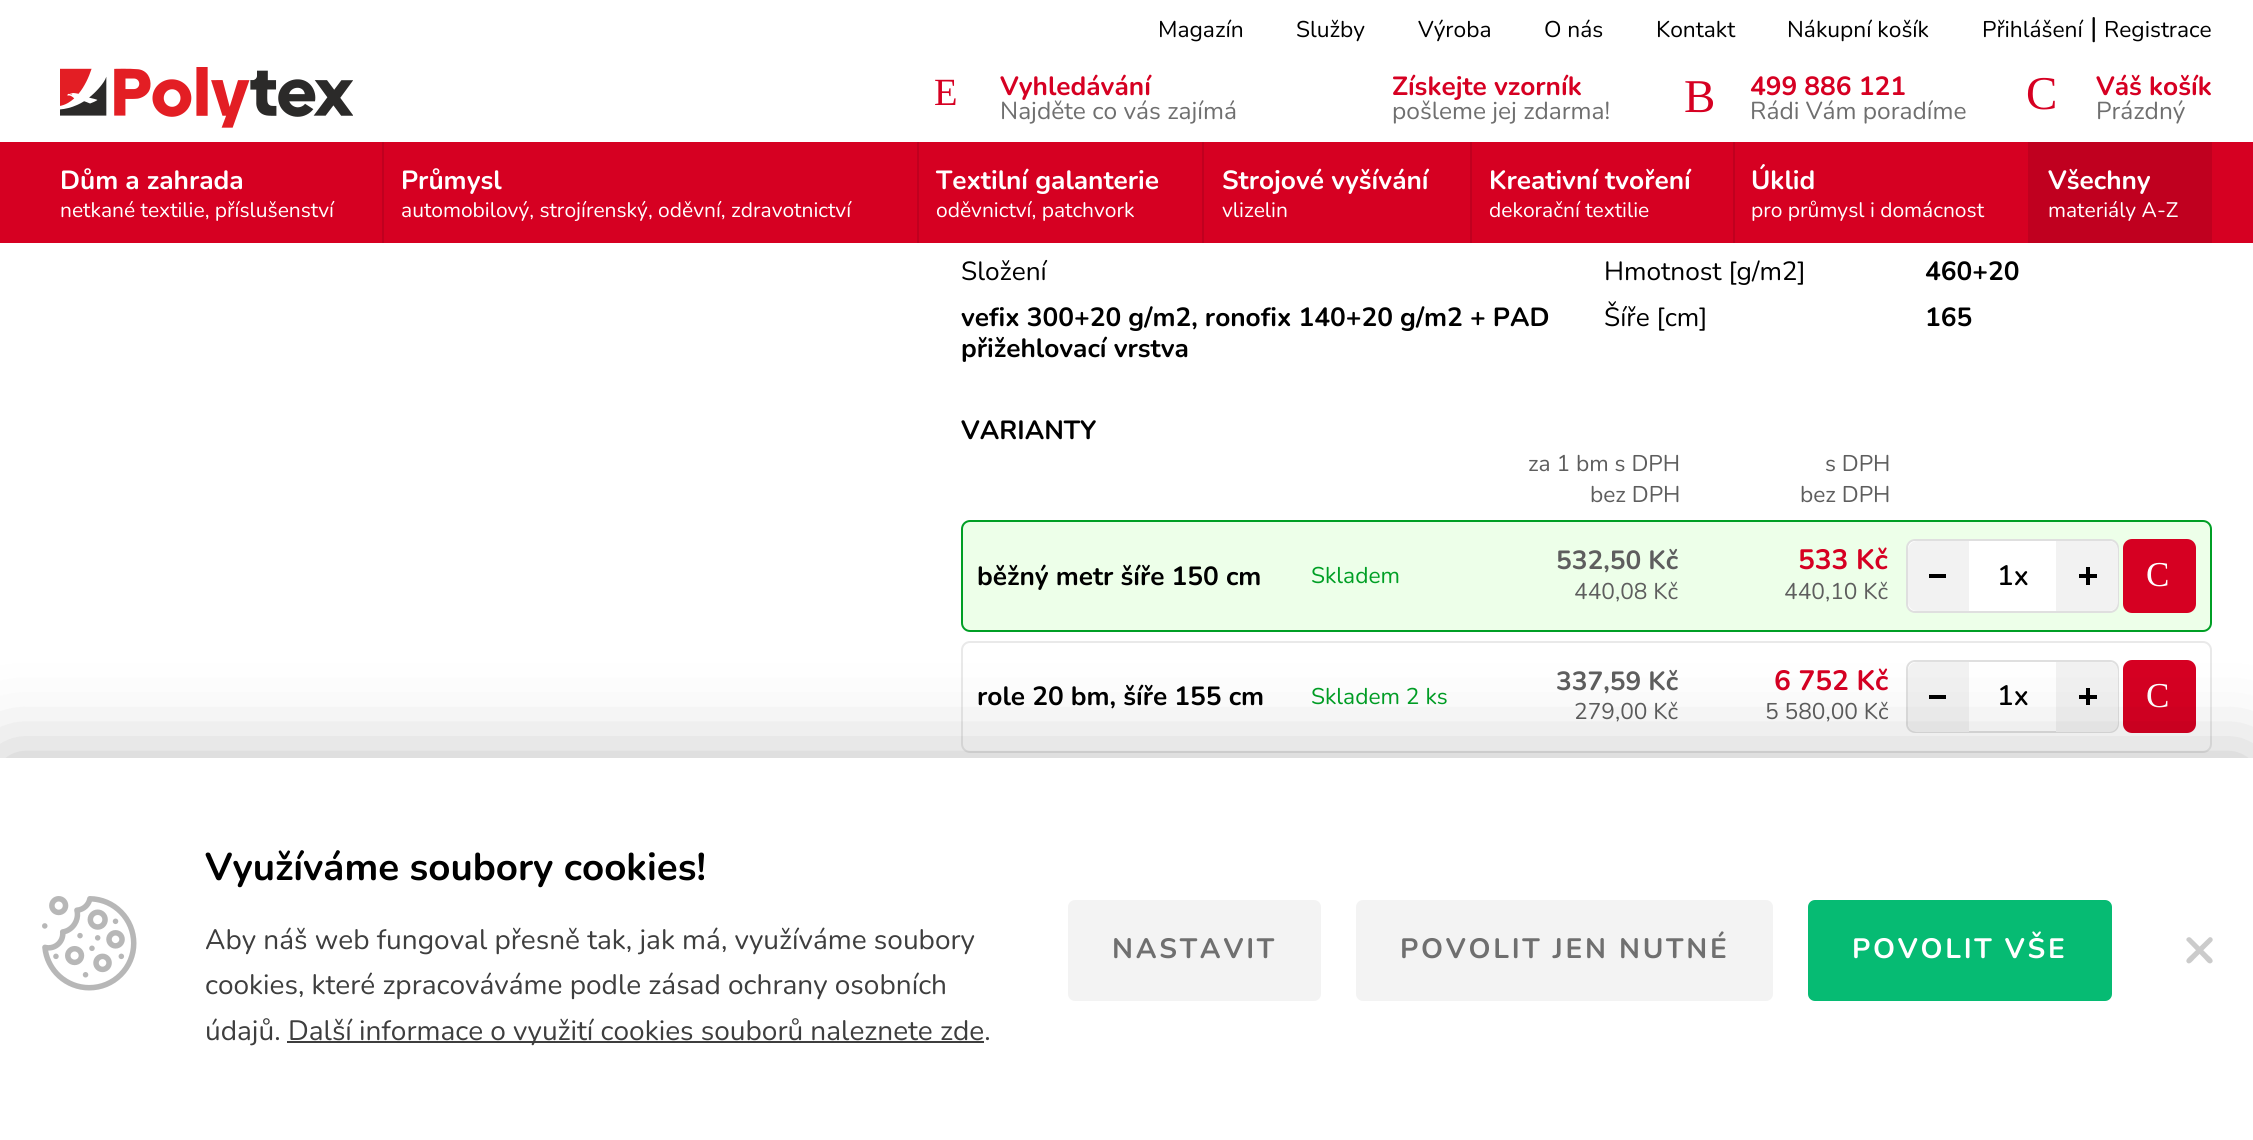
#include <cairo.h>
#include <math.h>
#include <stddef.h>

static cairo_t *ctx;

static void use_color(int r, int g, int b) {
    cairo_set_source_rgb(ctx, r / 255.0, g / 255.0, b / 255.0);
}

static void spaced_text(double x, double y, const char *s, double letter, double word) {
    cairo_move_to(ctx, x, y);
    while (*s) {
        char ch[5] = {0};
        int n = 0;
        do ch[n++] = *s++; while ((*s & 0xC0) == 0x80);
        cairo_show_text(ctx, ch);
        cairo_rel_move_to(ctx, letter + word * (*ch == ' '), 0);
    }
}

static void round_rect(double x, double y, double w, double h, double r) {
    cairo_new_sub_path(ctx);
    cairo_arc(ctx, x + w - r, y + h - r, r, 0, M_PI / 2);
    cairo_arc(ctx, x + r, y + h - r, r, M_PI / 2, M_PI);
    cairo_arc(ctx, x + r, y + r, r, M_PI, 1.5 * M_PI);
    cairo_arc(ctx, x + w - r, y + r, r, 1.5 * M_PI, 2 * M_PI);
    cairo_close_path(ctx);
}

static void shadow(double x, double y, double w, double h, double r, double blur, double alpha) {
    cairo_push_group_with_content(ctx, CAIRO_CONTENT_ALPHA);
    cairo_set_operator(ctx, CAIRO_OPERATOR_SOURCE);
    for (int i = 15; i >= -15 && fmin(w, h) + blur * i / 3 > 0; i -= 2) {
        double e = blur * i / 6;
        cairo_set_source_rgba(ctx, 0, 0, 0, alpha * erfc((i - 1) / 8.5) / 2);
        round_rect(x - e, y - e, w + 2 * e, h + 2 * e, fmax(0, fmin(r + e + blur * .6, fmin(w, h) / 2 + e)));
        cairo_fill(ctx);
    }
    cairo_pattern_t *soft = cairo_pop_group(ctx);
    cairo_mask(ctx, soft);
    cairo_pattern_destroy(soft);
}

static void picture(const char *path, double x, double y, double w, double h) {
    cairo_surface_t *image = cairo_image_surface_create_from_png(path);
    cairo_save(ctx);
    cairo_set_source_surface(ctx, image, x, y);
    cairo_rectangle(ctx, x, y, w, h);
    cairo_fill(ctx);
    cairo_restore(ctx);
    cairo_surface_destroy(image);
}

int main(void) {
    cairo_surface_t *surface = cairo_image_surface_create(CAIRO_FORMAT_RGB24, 2253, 1140);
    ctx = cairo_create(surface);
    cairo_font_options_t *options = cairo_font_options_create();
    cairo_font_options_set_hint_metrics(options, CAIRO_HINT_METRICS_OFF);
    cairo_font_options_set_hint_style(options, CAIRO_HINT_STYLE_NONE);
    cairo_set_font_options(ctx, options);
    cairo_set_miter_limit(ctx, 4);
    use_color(255, 255, 255);
    cairo_paint(ctx);
    cairo_select_font_face(ctx, "Nunito", CAIRO_FONT_SLANT_NORMAL, CAIRO_FONT_WEIGHT_NORMAL);
    cairo_set_font_size(ctx, 22.75);
    use_color(0, 0, 0);
    cairo_move_to(ctx, 1158, 37);
    cairo_show_text(ctx, "Magazín");
    cairo_move_to(ctx, 1296, 37);
    cairo_show_text(ctx, "Služby");
    cairo_move_to(ctx, 1418, 37);
    cairo_show_text(ctx, "Výroba");
    cairo_move_to(ctx, 1544, 37);
    cairo_show_text(ctx, "O nás");
    cairo_move_to(ctx, 1656, 37);
    cairo_show_text(ctx, "Kontakt");
    cairo_move_to(ctx, 1787, 37);
    cairo_show_text(ctx, "Nákupní košík");
    cairo_move_to(ctx, 1982, 37);
    cairo_show_text(ctx, "Přihlášení");
    cairo_set_font_size(ctx, 28);
    cairo_move_to(ctx, 2090, 37);
    cairo_show_text(ctx, "|");
    cairo_set_font_size(ctx, 22.75);
    cairo_move_to(ctx, 2104, 37);
    cairo_show_text(ctx, "Registrace");
    picture("img1.png", 60, 67, 293, 61);
    cairo_select_font_face(ctx, "Liberation Serif", CAIRO_FONT_SLANT_NORMAL, CAIRO_FONT_WEIGHT_NORMAL);
    cairo_set_font_size(ctx, 38.5);
    use_color(214, 0, 34);
    cairo_move_to(ctx, 934, 105);
    cairo_show_text(ctx, "E");
    cairo_select_font_face(ctx, "Nunito", CAIRO_FONT_SLANT_NORMAL, CAIRO_FONT_WEIGHT_BOLD);
    cairo_set_font_size(ctx, 26.25);
    cairo_move_to(ctx, 1000, 95);
    cairo_show_text(ctx, "Vyhledávání");
    cairo_select_font_face(ctx, "Nunito", CAIRO_FONT_SLANT_NORMAL, CAIRO_FONT_WEIGHT_NORMAL);
    cairo_set_font_size(ctx, 24.5);
    use_color(111, 111, 111);
    cairo_move_to(ctx, 1000, 119);
    cairo_show_text(ctx, "Najděte co vás zajímá");
    cairo_select_font_face(ctx, "Nunito", CAIRO_FONT_SLANT_NORMAL, CAIRO_FONT_WEIGHT_BOLD);
    cairo_set_font_size(ctx, 26.25);
    use_color(214, 0, 34);
    cairo_move_to(ctx, 1392, 95);
    cairo_show_text(ctx, "Získejte vzorník");
    cairo_select_font_face(ctx, "Nunito", CAIRO_FONT_SLANT_NORMAL, CAIRO_FONT_WEIGHT_NORMAL);
    cairo_set_font_size(ctx, 24.5);
    use_color(111, 111, 111);
    cairo_move_to(ctx, 1392, 119);
    cairo_show_text(ctx, "pošleme jej zdarma!");
    cairo_select_font_face(ctx, "Liberation Serif", CAIRO_FONT_SLANT_NORMAL, CAIRO_FONT_WEIGHT_NORMAL);
    cairo_set_font_size(ctx, 47);
    use_color(214, 0, 34);
    cairo_move_to(ctx, 1684, 112);
    cairo_show_text(ctx, "B");
    cairo_select_font_face(ctx, "Nunito", CAIRO_FONT_SLANT_NORMAL, CAIRO_FONT_WEIGHT_BOLD);
    cairo_set_font_size(ctx, 26.25);
    cairo_move_to(ctx, 1750, 95);
    cairo_show_text(ctx, "499 886 121");
    cairo_select_font_face(ctx, "Nunito", CAIRO_FONT_SLANT_NORMAL, CAIRO_FONT_WEIGHT_NORMAL);
    cairo_set_font_size(ctx, 24.5);
    use_color(111, 111, 111);
    cairo_move_to(ctx, 1750, 119);
    cairo_show_text(ctx, "Rádi Vám poradíme");
    cairo_select_font_face(ctx, "Liberation Serif", CAIRO_FONT_SLANT_NORMAL, CAIRO_FONT_WEIGHT_NORMAL);
    cairo_set_font_size(ctx, 47);
    use_color(214, 0, 34);
    cairo_move_to(ctx, 2026, 109);
    cairo_show_text(ctx, "C");
    cairo_select_font_face(ctx, "Nunito", CAIRO_FONT_SLANT_NORMAL, CAIRO_FONT_WEIGHT_BOLD);
    cairo_set_font_size(ctx, 26.25);
    cairo_move_to(ctx, 2096, 95);
    cairo_show_text(ctx, "Váš košík");
    cairo_select_font_face(ctx, "Nunito", CAIRO_FONT_SLANT_NORMAL, CAIRO_FONT_WEIGHT_NORMAL);
    cairo_set_font_size(ctx, 24.5);
    use_color(111, 111, 111);
    cairo_move_to(ctx, 2096, 119);
    cairo_show_text(ctx, "Prázdný");
    use_color(214, 0, 34);
    cairo_rectangle(ctx, 0, 142, 2253, 101);
    cairo_fill(ctx);
    use_color(192, 0, 31);
    cairo_rectangle(ctx, 382, 142, 2, 101);
    cairo_fill(ctx);
    cairo_select_font_face(ctx, "Nunito", CAIRO_FONT_SLANT_NORMAL, CAIRO_FONT_WEIGHT_BOLD);
    cairo_set_font_size(ctx, 26.25);
    use_color(255, 255, 255);
    cairo_move_to(ctx, 60, 189);
    cairo_show_text(ctx, "Dům a zahrada");
    cairo_select_font_face(ctx, "Nunito", CAIRO_FONT_SLANT_NORMAL, CAIRO_FONT_WEIGHT_NORMAL);
    cairo_set_font_size(ctx, 21);
    cairo_move_to(ctx, 60, 217);
    cairo_show_text(ctx, "netkané textilie, příslušenství");
    use_color(192, 0, 31);
    cairo_rectangle(ctx, 917, 142, 2, 101);
    cairo_fill(ctx);
    cairo_select_font_face(ctx, "Nunito", CAIRO_FONT_SLANT_NORMAL, CAIRO_FONT_WEIGHT_BOLD);
    cairo_set_font_size(ctx, 26.25);
    use_color(255, 255, 255);
    cairo_move_to(ctx, 401, 189);
    cairo_show_text(ctx, "Průmysl");
    cairo_select_font_face(ctx, "Nunito", CAIRO_FONT_SLANT_NORMAL, CAIRO_FONT_WEIGHT_NORMAL);
    cairo_set_font_size(ctx, 21);
    cairo_move_to(ctx, 401, 217);
    cairo_show_text(ctx, "automobilový, strojírenský, oděvní, zdravotnictví");
    use_color(192, 0, 31);
    cairo_rectangle(ctx, 1202, 142, 2, 101);
    cairo_fill(ctx);
    cairo_select_font_face(ctx, "Nunito", CAIRO_FONT_SLANT_NORMAL, CAIRO_FONT_WEIGHT_BOLD);
    cairo_set_font_size(ctx, 26.25);
    use_color(255, 255, 255);
    cairo_move_to(ctx, 936, 189);
    cairo_show_text(ctx, "Textilní galanterie");
    cairo_select_font_face(ctx, "Nunito", CAIRO_FONT_SLANT_NORMAL, CAIRO_FONT_WEIGHT_NORMAL);
    cairo_set_font_size(ctx, 21);
    cairo_move_to(ctx, 936, 217);
    cairo_show_text(ctx, "oděvnictví, patchvork");
    use_color(192, 0, 31);
    cairo_rectangle(ctx, 1470, 142, 2, 101);
    cairo_fill(ctx);
    cairo_select_font_face(ctx, "Nunito", CAIRO_FONT_SLANT_NORMAL, CAIRO_FONT_WEIGHT_BOLD);
    cairo_set_font_size(ctx, 26.25);
    use_color(255, 255, 255);
    cairo_move_to(ctx, 1222, 189);
    cairo_show_text(ctx, "Strojové vyšívání");
    cairo_select_font_face(ctx, "Nunito", CAIRO_FONT_SLANT_NORMAL, CAIRO_FONT_WEIGHT_NORMAL);
    cairo_set_font_size(ctx, 21);
    cairo_move_to(ctx, 1222, 217);
    cairo_show_text(ctx, "vlizelin");
    use_color(192, 0, 31);
    cairo_rectangle(ctx, 1733, 142, 2, 101);
    cairo_fill(ctx);
    cairo_select_font_face(ctx, "Nunito", CAIRO_FONT_SLANT_NORMAL, CAIRO_FONT_WEIGHT_BOLD);
    cairo_set_font_size(ctx, 26.25);
    use_color(255, 255, 255);
    cairo_move_to(ctx, 1489, 189);
    cairo_show_text(ctx, "Kreativní tvoření");
    cairo_select_font_face(ctx, "Nunito", CAIRO_FONT_SLANT_NORMAL, CAIRO_FONT_WEIGHT_NORMAL);
    cairo_set_font_size(ctx, 21);
    cairo_move_to(ctx, 1489, 217);
    cairo_show_text(ctx, "dekorační textilie");
    use_color(192, 0, 31);
    cairo_rectangle(ctx, 2028, 142, 184, 101);
    cairo_fill(ctx);
    cairo_select_font_face(ctx, "Nunito", CAIRO_FONT_SLANT_NORMAL, CAIRO_FONT_WEIGHT_BOLD);
    cairo_set_font_size(ctx, 26.25);
    use_color(255, 255, 255);
    cairo_move_to(ctx, 1751, 189);
    cairo_show_text(ctx, "Úklid");
    cairo_select_font_face(ctx, "Nunito", CAIRO_FONT_SLANT_NORMAL, CAIRO_FONT_WEIGHT_NORMAL);
    cairo_set_font_size(ctx, 21);
    cairo_move_to(ctx, 1751, 217);
    cairo_show_text(ctx, "pro průmysl i domácnost");
    cairo_select_font_face(ctx, "Nunito", CAIRO_FONT_SLANT_NORMAL, CAIRO_FONT_WEIGHT_BOLD);
    cairo_set_font_size(ctx, 26.25);
    cairo_move_to(ctx, 2048, 189);
    cairo_show_text(ctx, "Všechny");
    cairo_select_font_face(ctx, "Nunito", CAIRO_FONT_SLANT_NORMAL, CAIRO_FONT_WEIGHT_NORMAL);
    cairo_set_font_size(ctx, 21);
    cairo_move_to(ctx, 2048, 217);
    cairo_show_text(ctx, "materiály A-Z");
    cairo_set_font_size(ctx, 26.25);
    use_color(0, 0, 0);
    cairo_move_to(ctx, 961, 280);
    cairo_show_text(ctx, "Složení");
    cairo_select_font_face(ctx, "Nunito", CAIRO_FONT_SLANT_NORMAL, CAIRO_FONT_WEIGHT_BOLD);
    cairo_move_to(ctx, 961, 326);
    cairo_show_text(ctx, "vefix 300+20 g/m2, ronofix 140+20 g/m2 + PAD");
    cairo_move_to(ctx, 961, 357);
    cairo_show_text(ctx, "přižehlovací vrstva");
    cairo_select_font_face(ctx, "Nunito", CAIRO_FONT_SLANT_NORMAL, CAIRO_FONT_WEIGHT_NORMAL);
    cairo_move_to(ctx, 1604, 280);
    cairo_show_text(ctx, "Hmotnost [g/m2]");
    cairo_select_font_face(ctx, "Nunito", CAIRO_FONT_SLANT_NORMAL, CAIRO_FONT_WEIGHT_BOLD);
    cairo_move_to(ctx, 1925, 280);
    cairo_show_text(ctx, "460+20");
    cairo_select_font_face(ctx, "Nunito", CAIRO_FONT_SLANT_NORMAL, CAIRO_FONT_WEIGHT_NORMAL);
    cairo_move_to(ctx, 1604, 326);
    cairo_show_text(ctx, "Šíře [cm]");
    cairo_select_font_face(ctx, "Nunito", CAIRO_FONT_SLANT_NORMAL, CAIRO_FONT_WEIGHT_BOLD);
    cairo_move_to(ctx, 1925, 326);
    cairo_show_text(ctx, "165");
    cairo_move_to(ctx, 961, 439);
    cairo_show_text(ctx, "VARIANTY");
    cairo_select_font_face(ctx, "Nunito", CAIRO_FONT_SLANT_NORMAL, CAIRO_FONT_WEIGHT_NORMAL);
    cairo_set_font_size(ctx, 22.75);
    use_color(94, 94, 94);
    cairo_move_to(ctx, 1528, 471);
    cairo_show_text(ctx, "za 1 bm s DPH");
    cairo_move_to(ctx, 1590, 502);
    cairo_show_text(ctx, "bez DPH");
    cairo_move_to(ctx, 1825, 471);
    cairo_show_text(ctx, "s DPH");
    cairo_move_to(ctx, 1800, 502);
    cairo_show_text(ctx, "bez DPH");
    use_color(237, 255, 233);
    round_rect(962, 521, 1249, 110, 8);
    cairo_fill_preserve(ctx);
    use_color(0, 159, 37);
    cairo_stroke(ctx);
    cairo_select_font_face(ctx, "Nunito", CAIRO_FONT_SLANT_NORMAL, CAIRO_FONT_WEIGHT_BOLD);
    cairo_set_font_size(ctx, 26.25);
    use_color(0, 0, 0);
    cairo_move_to(ctx, 977, 585);
    cairo_show_text(ctx, "běžný metr šíře 150 cm");
    cairo_select_font_face(ctx, "Nunito", CAIRO_FONT_SLANT_NORMAL, CAIRO_FONT_WEIGHT_NORMAL);
    cairo_set_font_size(ctx, 22.75);
    use_color(0, 159, 37);
    cairo_move_to(ctx, 1311, 583);
    cairo_show_text(ctx, "Skladem");
    cairo_select_font_face(ctx, "Nunito", CAIRO_FONT_SLANT_NORMAL, CAIRO_FONT_WEIGHT_BOLD);
    cairo_set_font_size(ctx, 26.25);
    use_color(94, 94, 94);
    cairo_move_to(ctx, 1556, 569);
    cairo_show_text(ctx, "532,50 Kč");
    cairo_select_font_face(ctx, "Nunito", CAIRO_FONT_SLANT_NORMAL, CAIRO_FONT_WEIGHT_NORMAL);
    cairo_set_font_size(ctx, 22.75);
    cairo_move_to(ctx, 1574, 599);
    cairo_show_text(ctx, "440,08 Kč");
    cairo_select_font_face(ctx, "Nunito", CAIRO_FONT_SLANT_NORMAL, CAIRO_FONT_WEIGHT_BOLD);
    cairo_set_font_size(ctx, 28);
    use_color(214, 0, 34);
    cairo_move_to(ctx, 1798, 569);
    cairo_show_text(ctx, "533 Kč");
    cairo_select_font_face(ctx, "Nunito", CAIRO_FONT_SLANT_NORMAL, CAIRO_FONT_WEIGHT_NORMAL);
    cairo_set_font_size(ctx, 22.75);
    use_color(94, 94, 94);
    cairo_move_to(ctx, 1784, 599);
    cairo_show_text(ctx, "440,10 Kč");
    use_color(255, 255, 255);
    round_rect(1907, 540, 211, 72, 8);
    cairo_fill_preserve(ctx);
    use_color(223, 223, 223);
    cairo_stroke(ctx);
    use_color(242, 242, 242);
    cairo_new_path(ctx);
    cairo_move_to(ctx, 1917, 541);
    cairo_line_to(ctx, 1969, 541);
    cairo_line_to(ctx, 1969, 611);
    cairo_line_to(ctx, 1917, 611);
    cairo_curve_to(ctx, 1912, 611, 1908, 607, 1908, 602);
    cairo_line_to(ctx, 1908, 550);
    cairo_curve_to(ctx, 1908, 545, 1912, 541, 1917, 541);
    cairo_close_path(ctx);
    cairo_fill(ctx);
    use_color(0, 0, 0);
    cairo_rectangle(ctx, 1929, 574, 17, 4);
    cairo_fill(ctx);
    cairo_select_font_face(ctx, "Nunito SemiBold", CAIRO_FONT_SLANT_NORMAL, CAIRO_FONT_WEIGHT_NORMAL);
    cairo_set_font_size(ctx, 28);
    cairo_move_to(ctx, 1997, 585);
    cairo_show_text(ctx, "1x");
    use_color(242, 242, 242);
    cairo_new_path(ctx);
    cairo_move_to(ctx, 2056, 541);
    cairo_line_to(ctx, 2109, 541);
    cairo_curve_to(ctx, 2114, 541, 2118, 545, 2118, 550);
    cairo_line_to(ctx, 2118, 602);
    cairo_curve_to(ctx, 2118, 607, 2114, 611, 2109, 611);
    cairo_line_to(ctx, 2056, 611);
    cairo_close_path(ctx);
    cairo_fill(ctx);
    use_color(0, 0, 0);
    cairo_rectangle(ctx, 2079, 574, 18, 4);
    cairo_fill(ctx);
    cairo_rectangle(ctx, 2086, 567, 4, 18);
    cairo_fill(ctx);
    use_color(214, 0, 34);
    round_rect(2123, 539, 73, 74, 9);
    cairo_fill(ctx);
    cairo_select_font_face(ctx, "Liberation Serif", CAIRO_FONT_SLANT_NORMAL, CAIRO_FONT_WEIGHT_NORMAL);
    cairo_set_font_size(ctx, 35);
    use_color(255, 255, 255);
    cairo_move_to(ctx, 2146, 586);
    cairo_show_text(ctx, "C");
    round_rect(962, 642, 1249, 110, 8);
    use_color(233, 233, 233);
    cairo_stroke(ctx);
    cairo_select_font_face(ctx, "Nunito", CAIRO_FONT_SLANT_NORMAL, CAIRO_FONT_WEIGHT_BOLD);
    cairo_set_font_size(ctx, 26.25);
    use_color(0, 0, 0);
    cairo_move_to(ctx, 977, 705);
    cairo_show_text(ctx, "role 20 bm, šíře 155 cm");
    cairo_select_font_face(ctx, "Nunito", CAIRO_FONT_SLANT_NORMAL, CAIRO_FONT_WEIGHT_NORMAL);
    cairo_set_font_size(ctx, 22.75);
    use_color(0, 159, 37);
    cairo_move_to(ctx, 1311, 704);
    cairo_show_text(ctx, "Skladem 2 ks");
    cairo_select_font_face(ctx, "Nunito", CAIRO_FONT_SLANT_NORMAL, CAIRO_FONT_WEIGHT_BOLD);
    cairo_set_font_size(ctx, 26.25);
    use_color(94, 94, 94);
    cairo_move_to(ctx, 1556, 690);
    cairo_show_text(ctx, "337,59 Kč");
    cairo_select_font_face(ctx, "Nunito", CAIRO_FONT_SLANT_NORMAL, CAIRO_FONT_WEIGHT_NORMAL);
    cairo_set_font_size(ctx, 22.75);
    cairo_move_to(ctx, 1574, 719);
    cairo_show_text(ctx, "279,00 Kč");
    cairo_select_font_face(ctx, "Nunito", CAIRO_FONT_SLANT_NORMAL, CAIRO_FONT_WEIGHT_BOLD);
    cairo_set_font_size(ctx, 28);
    use_color(214, 0, 34);
    cairo_move_to(ctx, 1774, 690);
    cairo_show_text(ctx, "6 752 Kč");
    cairo_select_font_face(ctx, "Nunito", CAIRO_FONT_SLANT_NORMAL, CAIRO_FONT_WEIGHT_NORMAL);
    cairo_set_font_size(ctx, 22.75);
    use_color(94, 94, 94);
    cairo_move_to(ctx, 1765, 719);
    cairo_show_text(ctx, "5 580,00 Kč");
    round_rect(1907, 661, 211, 71, 8);
    use_color(223, 223, 223);
    cairo_stroke(ctx);
    use_color(242, 242, 242);
    cairo_new_path(ctx);
    cairo_move_to(ctx, 1917, 662);
    cairo_line_to(ctx, 1969, 662);
    cairo_line_to(ctx, 1969, 732);
    cairo_line_to(ctx, 1917, 732);
    cairo_curve_to(ctx, 1912, 732, 1908, 728, 1908, 723);
    cairo_line_to(ctx, 1908, 671);
    cairo_curve_to(ctx, 1908, 666, 1912, 662, 1917, 662);
    cairo_close_path(ctx);
    cairo_fill(ctx);
    use_color(0, 0, 0);
    cairo_rectangle(ctx, 1929, 695, 17, 4);
    cairo_fill(ctx);
    cairo_select_font_face(ctx, "Nunito SemiBold", CAIRO_FONT_SLANT_NORMAL, CAIRO_FONT_WEIGHT_NORMAL);
    cairo_set_font_size(ctx, 28);
    cairo_move_to(ctx, 1997, 705);
    cairo_show_text(ctx, "1x");
    use_color(242, 242, 242);
    cairo_new_path(ctx);
    cairo_move_to(ctx, 2056, 662);
    cairo_line_to(ctx, 2109, 662);
    cairo_curve_to(ctx, 2114, 662, 2118, 666, 2118, 671);
    cairo_line_to(ctx, 2118, 723);
    cairo_curve_to(ctx, 2118, 728, 2114, 732, 2109, 732);
    cairo_line_to(ctx, 2056, 732);
    cairo_close_path(ctx);
    cairo_fill(ctx);
    use_color(0, 0, 0);
    cairo_rectangle(ctx, 2079, 695, 18, 4);
    cairo_fill(ctx);
    cairo_rectangle(ctx, 2086, 688, 4, 17);
    cairo_fill(ctx);
    use_color(214, 0, 34);
    round_rect(2123, 660, 73, 73, 9);
    cairo_fill(ctx);
    cairo_select_font_face(ctx, "Liberation Serif", CAIRO_FONT_SLANT_NORMAL, CAIRO_FONT_WEIGHT_NORMAL);
    cairo_set_font_size(ctx, 35);
    use_color(255, 255, 255);
    cairo_move_to(ctx, 2146, 707);
    cairo_show_text(ctx, "C");
    use_color(0, 0, 0);
    shadow(0, 758, 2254, 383, 0, 44, 0.25);
    use_color(255, 255, 255);
    cairo_rectangle(ctx, 0, 758, 2253, 382);
    cairo_fill(ctx);
    picture("img2.png", 42, 896, 95, 95);
    cairo_select_font_face(ctx, "Nunito", CAIRO_FONT_SLANT_NORMAL, CAIRO_FONT_WEIGHT_BOLD);
    cairo_set_font_size(ctx, 38.5);
    use_color(0, 0, 0);
    cairo_move_to(ctx, 205, 880);
    cairo_show_text(ctx, "Využíváme soubory cookies!");
    cairo_select_font_face(ctx, "Nunito", CAIRO_FONT_SLANT_NORMAL, CAIRO_FONT_WEIGHT_NORMAL);
    cairo_set_font_size(ctx, 28);
    use_color(62, 62, 62);
    cairo_move_to(ctx, 205, 949);
    cairo_show_text(ctx, "Aby náš web fungoval přesně tak, jak má, využíváme soubory");
    cairo_move_to(ctx, 205, 994);
    cairo_show_text(ctx, "cookies, které zpracováváme podle zásad ochrany osobních");
    cairo_move_to(ctx, 205, 1040);
    cairo_show_text(ctx, "údajů.");
    cairo_rectangle(ctx, 287, 1041, 697, 2);
    cairo_fill(ctx);
    cairo_move_to(ctx, 288, 1040);
    cairo_show_text(ctx, "Další informace o využití cookies souborů naleznete zde.");
    use_color(243, 243, 243);
    round_rect(1068, 900, 253, 101, 7);
    cairo_fill(ctx);
    cairo_select_font_face(ctx, "Nunito", CAIRO_FONT_SLANT_NORMAL, CAIRO_FONT_WEIGHT_BOLD);
    use_color(111, 111, 111);
    spaced_text(1112, 958, "NASTAVIT", 2.75, 0);
    use_color(243, 243, 243);
    round_rect(1356, 900, 417, 101, 7);
    cairo_fill(ctx);
    use_color(111, 111, 111);
    spaced_text(1400, 958, "POVOLIT JEN NUTNÉ", 2.75, 0);
    use_color(6, 187, 115);
    round_rect(1808, 900, 304, 101, 7);
    cairo_fill(ctx);
    use_color(255, 255, 255);
    spaced_text(1852, 958, "POVOLIT VŠE", 2.75, 0);
    use_color(203, 203, 203);
    cairo_new_path(ctx);
    cairo_move_to(ctx, 2191, 938);
    cairo_line_to(ctx, 2208.5, 955.5);
    cairo_curve_to(ctx, 2209.5, 956.5, 2214.5, 960, 2212, 962.5);
    cairo_curve_to(ctx, 2209, 965.5, 2206, 960.5, 2204.5, 959);
    cairo_line_to(ctx, 2186.5, 940.5);
    cairo_curve_to(ctx, 2185.5, 938, 2189, 936, 2191, 938);
    cairo_close_path(ctx);
    cairo_fill(ctx);
    cairo_new_path(ctx);
    cairo_move_to(ctx, 2212, 941.5);
    cairo_line_to(ctx, 2194.5, 959);
    cairo_curve_to(ctx, 2193, 960.5, 2189.5, 965.5, 2187, 962.5);
    cairo_curve_to(ctx, 2184.5, 960, 2189.5, 956.5, 2190.5, 955.5);
    cairo_line_to(ctx, 2209, 937.5);
    cairo_curve_to(ctx, 2211.5, 936, 2214, 939.5, 2212, 941.5);
    cairo_close_path(ctx);
    cairo_fill(ctx);
    cairo_surface_write_to_png(surface, "result.png");
    cairo_font_options_destroy(options);
    cairo_destroy(ctx);
    cairo_surface_destroy(surface);
    return 0;
}
